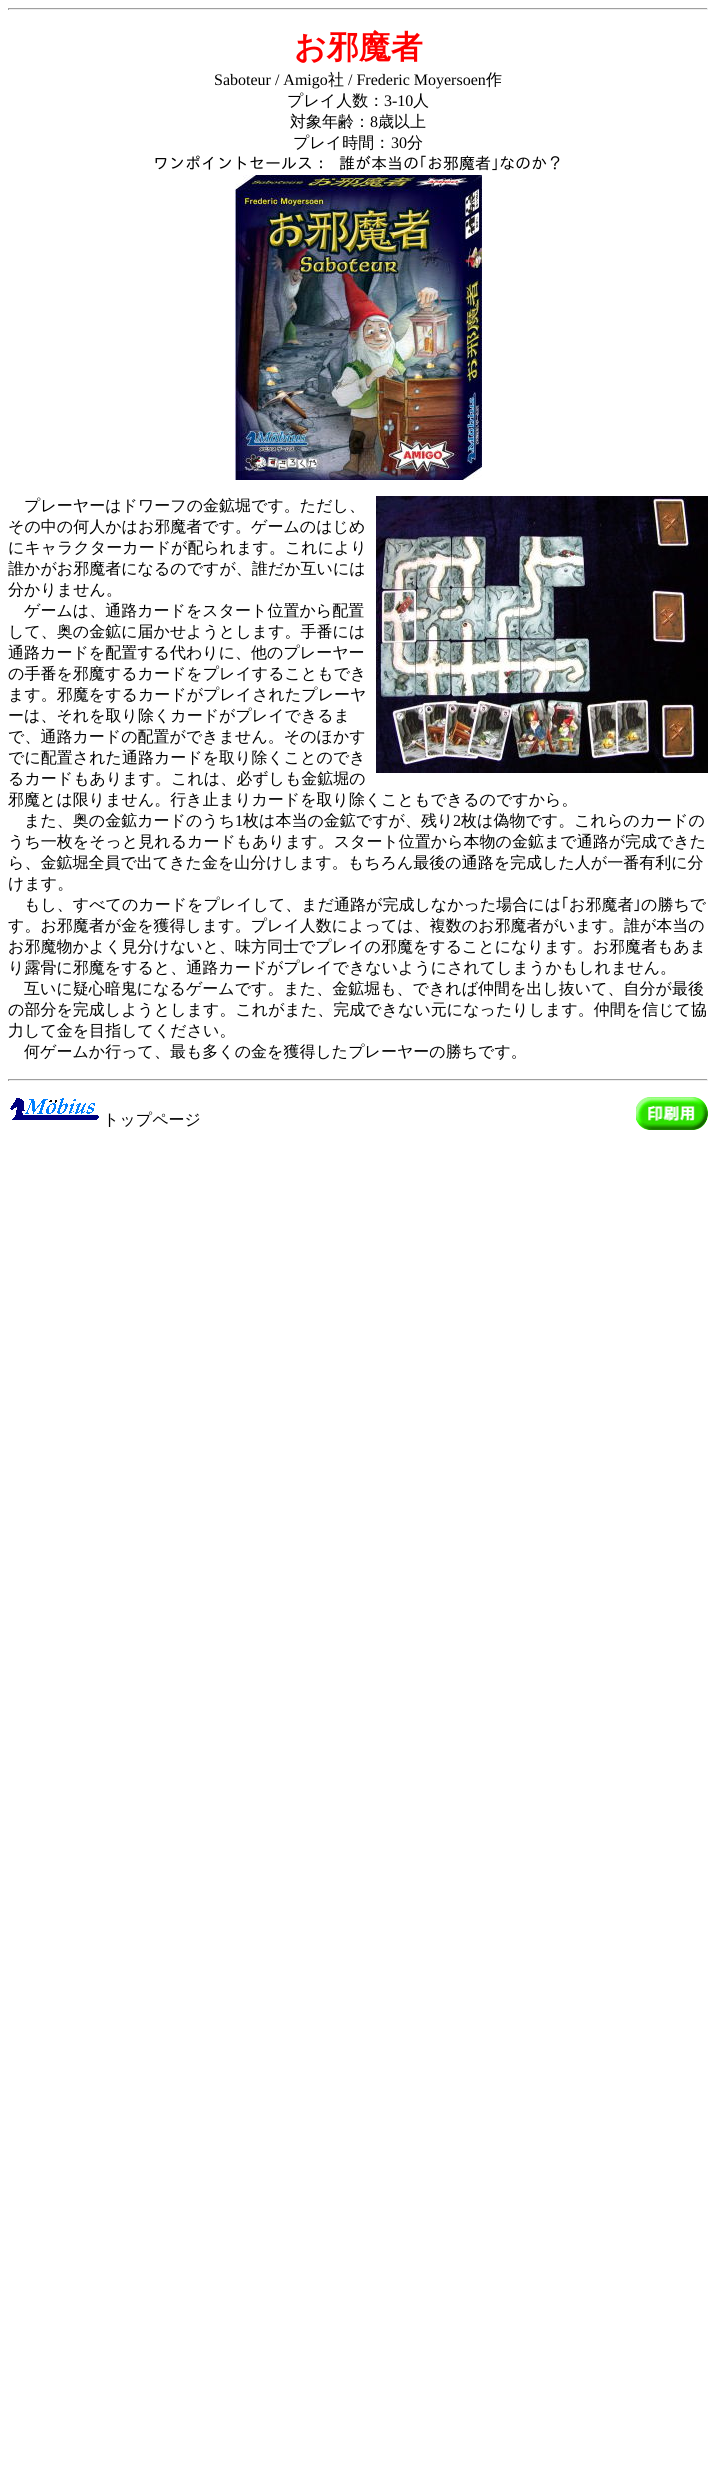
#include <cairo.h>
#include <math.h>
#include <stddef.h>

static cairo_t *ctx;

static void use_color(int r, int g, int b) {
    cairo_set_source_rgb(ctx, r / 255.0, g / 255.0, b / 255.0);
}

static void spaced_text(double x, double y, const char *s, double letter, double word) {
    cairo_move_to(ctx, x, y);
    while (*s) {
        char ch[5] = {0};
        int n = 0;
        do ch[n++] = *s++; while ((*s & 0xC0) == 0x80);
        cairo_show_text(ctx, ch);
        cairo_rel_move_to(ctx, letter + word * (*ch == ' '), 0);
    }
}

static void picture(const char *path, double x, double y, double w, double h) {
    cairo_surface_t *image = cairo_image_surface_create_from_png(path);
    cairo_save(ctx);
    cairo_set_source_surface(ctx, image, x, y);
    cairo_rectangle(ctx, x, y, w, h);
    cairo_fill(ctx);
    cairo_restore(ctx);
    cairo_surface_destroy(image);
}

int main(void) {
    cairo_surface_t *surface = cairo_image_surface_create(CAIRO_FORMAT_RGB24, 716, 2480);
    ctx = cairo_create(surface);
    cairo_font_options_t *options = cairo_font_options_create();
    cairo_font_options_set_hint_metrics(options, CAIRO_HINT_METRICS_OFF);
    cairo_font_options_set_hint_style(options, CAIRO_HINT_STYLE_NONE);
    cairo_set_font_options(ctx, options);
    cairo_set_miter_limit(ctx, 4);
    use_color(255, 255, 255);
    cairo_paint(ctx);
    use_color(159, 159, 159);
    cairo_rectangle(ctx, 8, 8, 700, 1);
    cairo_fill(ctx);
    use_color(238, 238, 238);
    cairo_rectangle(ctx, 707, 8, 1, 2);
    cairo_fill(ctx);
    cairo_rectangle(ctx, 8, 9, 700, 1);
    cairo_fill(ctx);
    use_color(159, 159, 159);
    cairo_rectangle(ctx, 8, 8, 1, 2);
    cairo_fill(ctx);
    cairo_select_font_face(ctx, "WenQuanYi Zen Hei", CAIRO_FONT_SLANT_NORMAL, CAIRO_FONT_WEIGHT_BOLD);
    cairo_set_font_size(ctx, 32);
    use_color(255, 0, 0);
    cairo_move_to(ctx, 294, 58);
    cairo_show_text(ctx, "お邪魔者");
    cairo_select_font_face(ctx, "Liberation Serif", CAIRO_FONT_SLANT_NORMAL, CAIRO_FONT_WEIGHT_NORMAL);
    cairo_set_font_size(ctx, 16);
    use_color(0, 0, 0);
    cairo_move_to(ctx, 214, 85);
    cairo_show_text(ctx, "Saboteur / Amigo");
    cairo_select_font_face(ctx, "WenQuanYi Zen Hei Medium", CAIRO_FONT_SLANT_NORMAL, CAIRO_FONT_WEIGHT_NORMAL);
    cairo_move_to(ctx, 328, 85);
    cairo_show_text(ctx, "社");
    cairo_select_font_face(ctx, "Liberation Serif", CAIRO_FONT_SLANT_NORMAL, CAIRO_FONT_WEIGHT_NORMAL);
    cairo_move_to(ctx, 348, 85);
    cairo_show_text(ctx, "/ Frederic Moyersoen");
    cairo_select_font_face(ctx, "WenQuanYi Zen Hei Medium", CAIRO_FONT_SLANT_NORMAL, CAIRO_FONT_WEIGHT_NORMAL);
    cairo_move_to(ctx, 486, 85);
    cairo_show_text(ctx, "作");
    cairo_move_to(ctx, 287, 106);
    cairo_show_text(ctx, "プレイ人数：");
    cairo_select_font_face(ctx, "Liberation Serif", CAIRO_FONT_SLANT_NORMAL, CAIRO_FONT_WEIGHT_NORMAL);
    cairo_move_to(ctx, 384, 106);
    cairo_show_text(ctx, "3-10");
    cairo_select_font_face(ctx, "WenQuanYi Zen Hei Medium", CAIRO_FONT_SLANT_NORMAL, CAIRO_FONT_WEIGHT_NORMAL);
    cairo_move_to(ctx, 413, 106);
    cairo_show_text(ctx, "人");
    cairo_move_to(ctx, 290, 127);
    cairo_show_text(ctx, "対象年齢：");
    cairo_select_font_face(ctx, "Liberation Serif", CAIRO_FONT_SLANT_NORMAL, CAIRO_FONT_WEIGHT_NORMAL);
    cairo_move_to(ctx, 370, 127);
    cairo_show_text(ctx, "8");
    cairo_select_font_face(ctx, "WenQuanYi Zen Hei Medium", CAIRO_FONT_SLANT_NORMAL, CAIRO_FONT_WEIGHT_NORMAL);
    cairo_move_to(ctx, 378, 127);
    cairo_show_text(ctx, "歳以上");
    cairo_move_to(ctx, 293, 148);
    cairo_show_text(ctx, "プレイ時間：");
    cairo_select_font_face(ctx, "Liberation Serif", CAIRO_FONT_SLANT_NORMAL, CAIRO_FONT_WEIGHT_NORMAL);
    cairo_move_to(ctx, 391, 148);
    cairo_show_text(ctx, "30");
    cairo_select_font_face(ctx, "WenQuanYi Zen Hei Medium", CAIRO_FONT_SLANT_NORMAL, CAIRO_FONT_WEIGHT_NORMAL);
    cairo_move_to(ctx, 407, 148);
    cairo_show_text(ctx, "分");
    cairo_select_font_face(ctx, "IPAGothic", CAIRO_FONT_SLANT_NORMAL, CAIRO_FONT_WEIGHT_NORMAL);
    spaced_text(153, 169, "ワンポイントセールス： 誰が本当の｢お邪魔者｣なのか？", 0, 2);
    picture("img1.png", 235, 175, 247, 305);
    cairo_select_font_face(ctx, "WenQuanYi Zen Hei Medium", CAIRO_FONT_SLANT_NORMAL, CAIRO_FONT_WEIGHT_NORMAL);
    cairo_move_to(ctx, 24, 511);
    cairo_show_text(ctx, "プレーヤーはドワーフの金鉱堀です。ただし、");
    picture("img2.png", 376, 496, 332, 277);
    cairo_move_to(ctx, 8, 532);
    cairo_show_text(ctx, "その中の何人かはお邪魔者です。ゲームのはじめ");
    cairo_move_to(ctx, 8, 553);
    cairo_show_text(ctx, "にキャラクターカードが配られます。これにより");
    cairo_move_to(ctx, 8, 574);
    cairo_show_text(ctx, "誰かがお邪魔者になるのですが、誰だか互いには");
    cairo_move_to(ctx, 8, 595);
    cairo_show_text(ctx, "分かりません。");
    cairo_move_to(ctx, 24, 616);
    cairo_show_text(ctx, "ゲームは、通路カードをスタート位置から配置");
    cairo_move_to(ctx, 8, 637);
    cairo_show_text(ctx, "して、奥の金鉱に届かせようとします。手番には");
    cairo_move_to(ctx, 8, 658);
    cairo_show_text(ctx, "通路カードを配置する代わりに、他のプレーヤー");
    cairo_move_to(ctx, 8, 679);
    cairo_show_text(ctx, "の手番を邪魔するカードをプレイすることもでき");
    cairo_move_to(ctx, 8, 700);
    cairo_show_text(ctx, "ます。邪魔をするカードがプレイされたプレーヤ");
    cairo_move_to(ctx, 8, 721);
    cairo_show_text(ctx, "ーは、それを取り除くカードがプレイできるま");
    cairo_move_to(ctx, 8, 742);
    cairo_show_text(ctx, "で、通路カードの配置ができません。そのほかす");
    cairo_move_to(ctx, 8, 763);
    cairo_show_text(ctx, "でに配置された通路カードを取り除くことのでき");
    cairo_move_to(ctx, 8, 784);
    cairo_show_text(ctx, "るカードもあります。これは、必ずしも金鉱堀の");
    cairo_move_to(ctx, 8, 805);
    cairo_show_text(ctx, "邪魔とは限りません。行き止まりカードを取り除くこともできるのですから。");
    cairo_move_to(ctx, 24, 826);
    cairo_show_text(ctx, "また、奥の金鉱カードのうち");
    cairo_select_font_face(ctx, "Liberation Serif", CAIRO_FONT_SLANT_NORMAL, CAIRO_FONT_WEIGHT_NORMAL);
    cairo_move_to(ctx, 235, 826);
    cairo_show_text(ctx, "1");
    cairo_select_font_face(ctx, "WenQuanYi Zen Hei Medium", CAIRO_FONT_SLANT_NORMAL, CAIRO_FONT_WEIGHT_NORMAL);
    cairo_move_to(ctx, 243, 826);
    cairo_show_text(ctx, "枚は本当の金鉱ですが、残り");
    cairo_select_font_face(ctx, "Liberation Serif", CAIRO_FONT_SLANT_NORMAL, CAIRO_FONT_WEIGHT_NORMAL);
    cairo_move_to(ctx, 453, 826);
    cairo_show_text(ctx, "2");
    cairo_select_font_face(ctx, "WenQuanYi Zen Hei Medium", CAIRO_FONT_SLANT_NORMAL, CAIRO_FONT_WEIGHT_NORMAL);
    cairo_move_to(ctx, 461, 826);
    cairo_show_text(ctx, "枚は偽物です。これらのカードの");
    cairo_move_to(ctx, 8, 847);
    cairo_show_text(ctx, "うち一枚をそっと見れるカードもあります。スタート位置から本物の金鉱まで通路が完成できた");
    cairo_move_to(ctx, 8, 868);
    cairo_show_text(ctx, "ら、金鉱堀全員で出てきた金を山分けします。もちろん最後の通路を完成した人が一番有利に分");
    cairo_move_to(ctx, 8, 889);
    cairo_show_text(ctx, "けます。");
    cairo_move_to(ctx, 24, 910);
    cairo_show_text(ctx, "もし、すべてのカードをプレイして、まだ通路が完成しなかった場合には");
    cairo_select_font_face(ctx, "IPAGothic", CAIRO_FONT_SLANT_NORMAL, CAIRO_FONT_WEIGHT_NORMAL);
    cairo_move_to(ctx, 561, 910);
    cairo_show_text(ctx, "｢");
    cairo_select_font_face(ctx, "WenQuanYi Zen Hei Medium", CAIRO_FONT_SLANT_NORMAL, CAIRO_FONT_WEIGHT_NORMAL);
    cairo_move_to(ctx, 569, 910);
    cairo_show_text(ctx, "お邪魔者");
    cairo_select_font_face(ctx, "IPAGothic", CAIRO_FONT_SLANT_NORMAL, CAIRO_FONT_WEIGHT_NORMAL);
    cairo_move_to(ctx, 633, 910);
    cairo_show_text(ctx, "｣");
    cairo_select_font_face(ctx, "WenQuanYi Zen Hei Medium", CAIRO_FONT_SLANT_NORMAL, CAIRO_FONT_WEIGHT_NORMAL);
    cairo_move_to(ctx, 641, 910);
    cairo_show_text(ctx, "の勝ちで");
    cairo_move_to(ctx, 8, 931);
    cairo_show_text(ctx, "す。お邪魔者が金を獲得します。プレイ人数によっては、複数のお邪魔者がいます。誰が本当の");
    cairo_move_to(ctx, 8, 952);
    cairo_show_text(ctx, "お邪魔物かよく見分けないと、味方同士でプレイの邪魔をすることになります。お邪魔者もあま");
    cairo_move_to(ctx, 8, 973);
    cairo_show_text(ctx, "り露骨に邪魔をすると、通路カードがプレイできないようにされてしまうかもしれません。");
    cairo_move_to(ctx, 24, 994);
    cairo_show_text(ctx, "互いに疑心暗鬼になるゲームです。また、金鉱堀も、できれば仲間を出し抜いて、自分が最後");
    cairo_move_to(ctx, 8, 1015);
    cairo_show_text(ctx, "の部分を完成しようとします。これがまた、完成できない元になったりします。仲間を信じて協");
    cairo_move_to(ctx, 8, 1036);
    cairo_show_text(ctx, "力して金を目指してください。");
    cairo_move_to(ctx, 24, 1057);
    cairo_show_text(ctx, "何ゲームか行って、最も多くの金を獲得したプレーヤーの勝ちです。");
    use_color(159, 159, 159);
    cairo_rectangle(ctx, 8, 1079, 700, 1);
    cairo_fill(ctx);
    use_color(238, 238, 238);
    cairo_rectangle(ctx, 707, 1079, 1, 2);
    cairo_fill(ctx);
    cairo_rectangle(ctx, 8, 1080, 700, 1);
    cairo_fill(ctx);
    use_color(159, 159, 159);
    cairo_rectangle(ctx, 8, 1079, 1, 2);
    cairo_fill(ctx);
    picture("img3.png", 10, 1098, 89, 22);
    use_color(0, 0, 0);
    cairo_move_to(ctx, 103, 1125);
    cairo_show_text(ctx, "トップページ");
    picture("img4.png", 636, 1097, 72, 33);
    cairo_surface_write_to_png(surface, "result.png");
    cairo_font_options_destroy(options);
    cairo_destroy(ctx);
    cairo_surface_destroy(surface);
    return 0;
}
